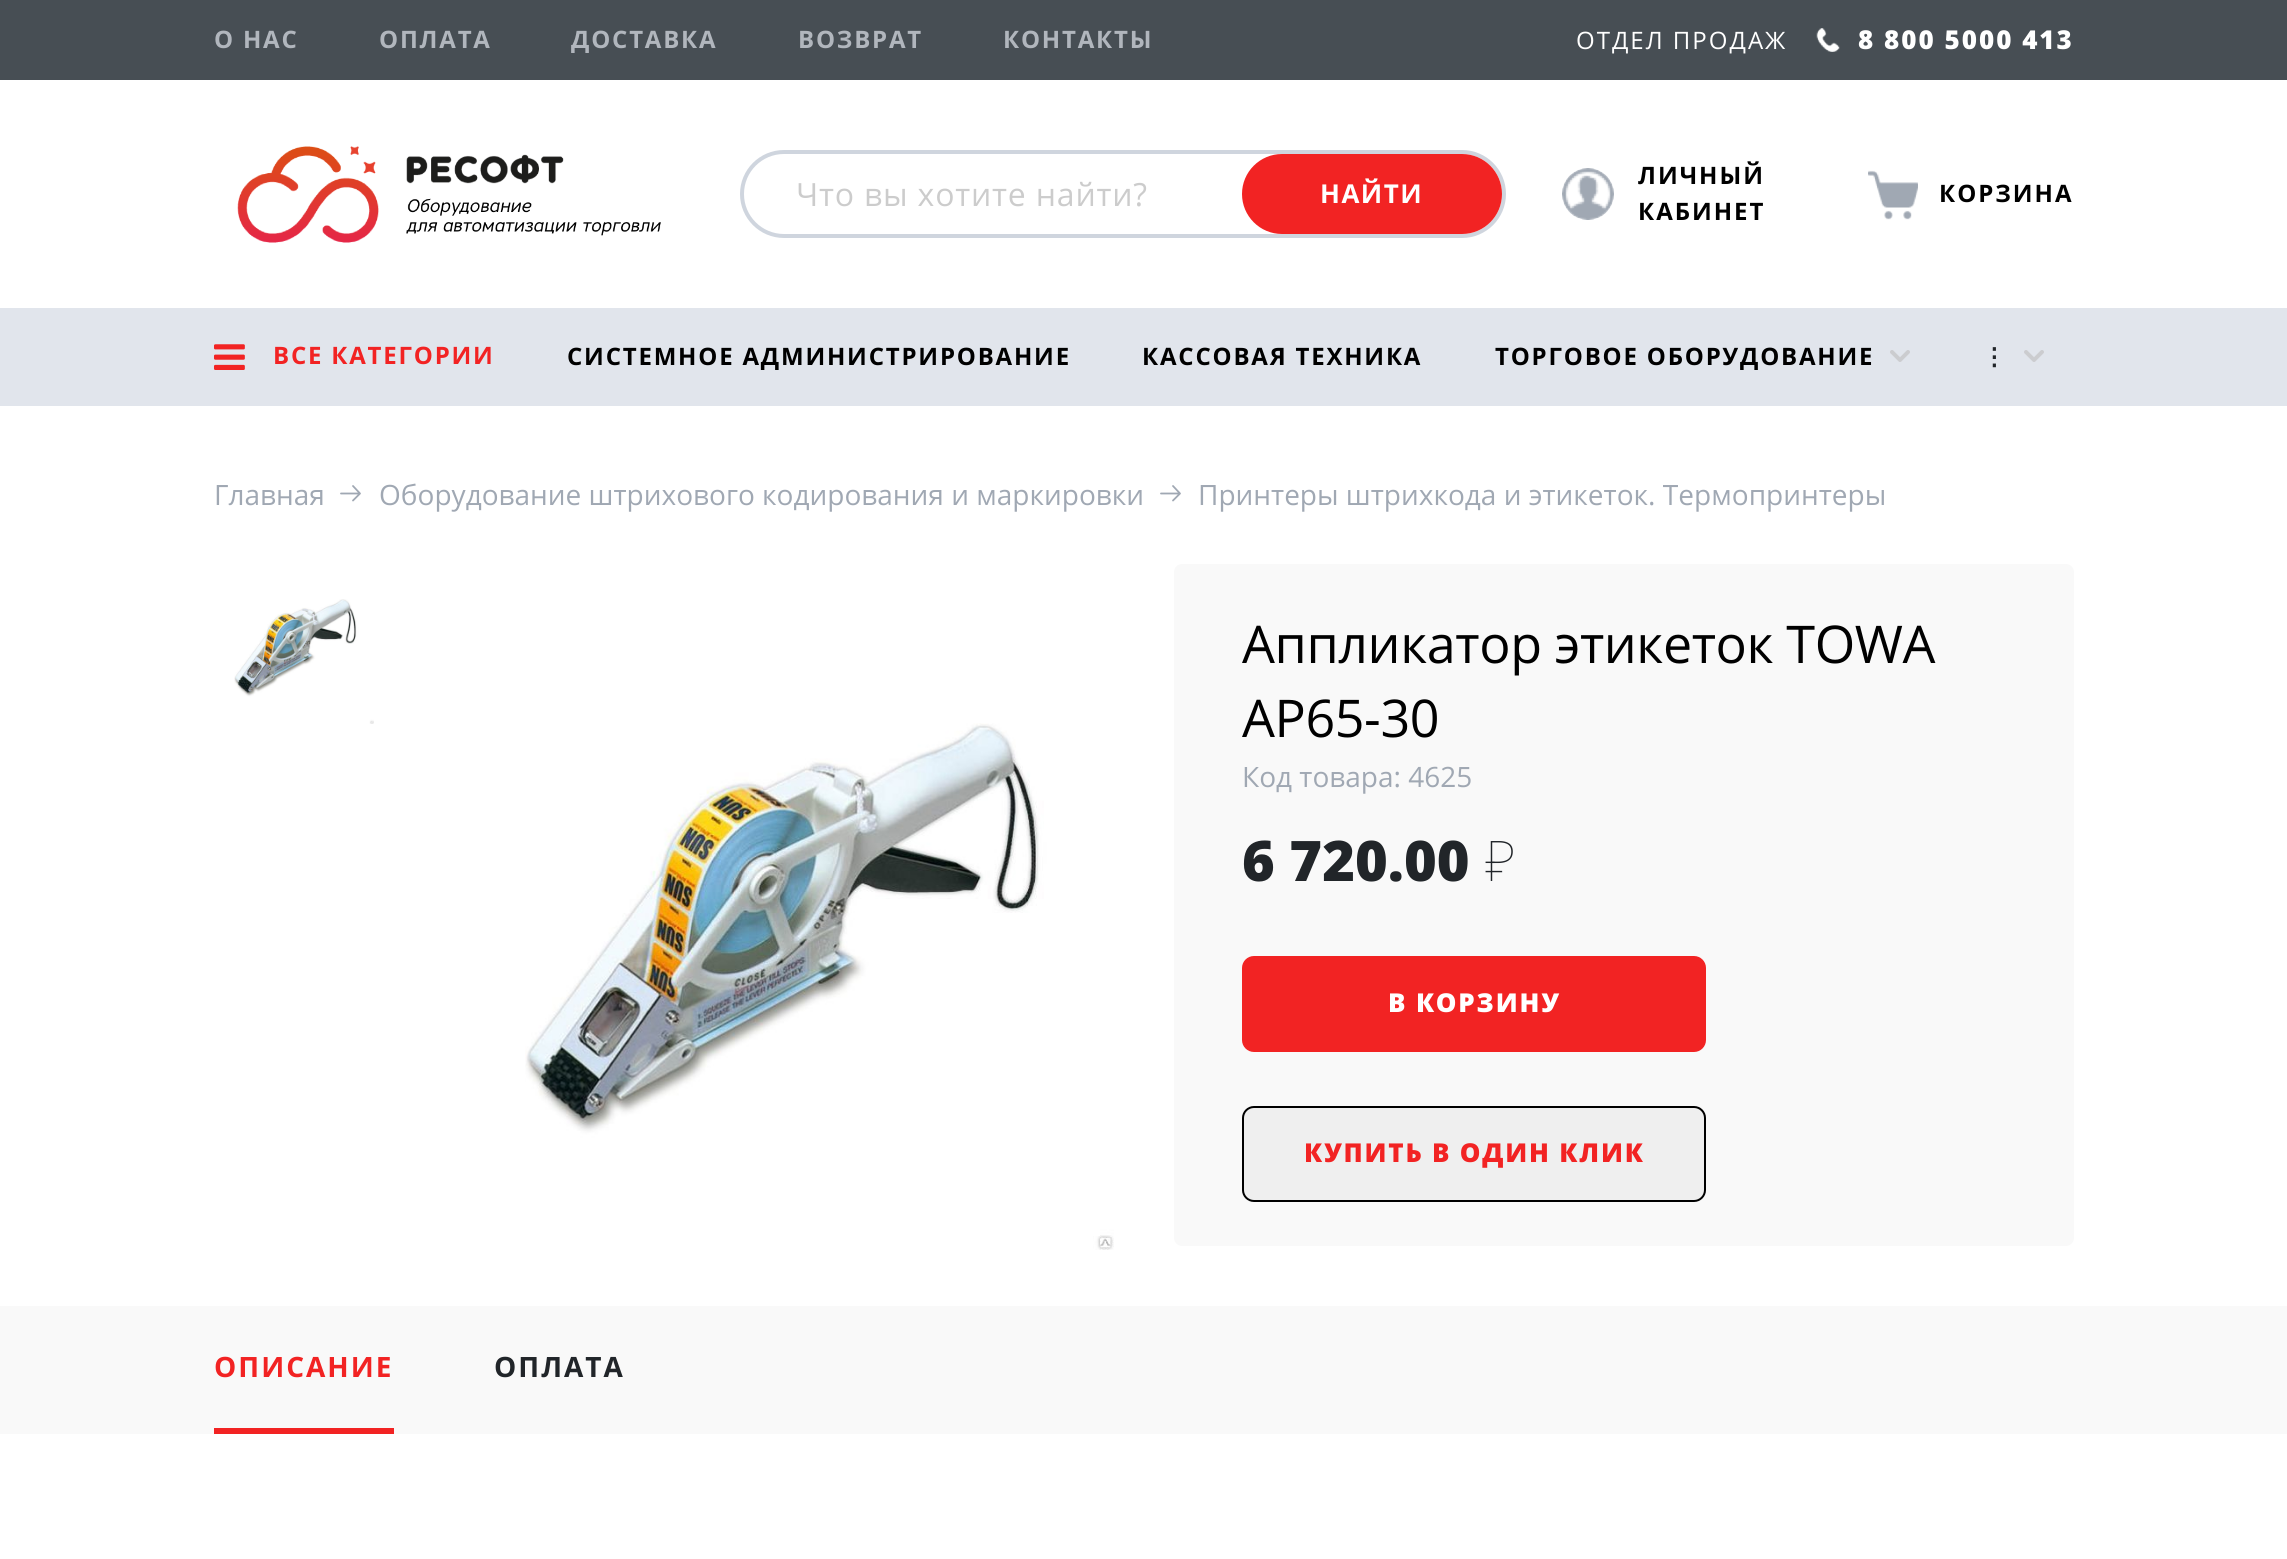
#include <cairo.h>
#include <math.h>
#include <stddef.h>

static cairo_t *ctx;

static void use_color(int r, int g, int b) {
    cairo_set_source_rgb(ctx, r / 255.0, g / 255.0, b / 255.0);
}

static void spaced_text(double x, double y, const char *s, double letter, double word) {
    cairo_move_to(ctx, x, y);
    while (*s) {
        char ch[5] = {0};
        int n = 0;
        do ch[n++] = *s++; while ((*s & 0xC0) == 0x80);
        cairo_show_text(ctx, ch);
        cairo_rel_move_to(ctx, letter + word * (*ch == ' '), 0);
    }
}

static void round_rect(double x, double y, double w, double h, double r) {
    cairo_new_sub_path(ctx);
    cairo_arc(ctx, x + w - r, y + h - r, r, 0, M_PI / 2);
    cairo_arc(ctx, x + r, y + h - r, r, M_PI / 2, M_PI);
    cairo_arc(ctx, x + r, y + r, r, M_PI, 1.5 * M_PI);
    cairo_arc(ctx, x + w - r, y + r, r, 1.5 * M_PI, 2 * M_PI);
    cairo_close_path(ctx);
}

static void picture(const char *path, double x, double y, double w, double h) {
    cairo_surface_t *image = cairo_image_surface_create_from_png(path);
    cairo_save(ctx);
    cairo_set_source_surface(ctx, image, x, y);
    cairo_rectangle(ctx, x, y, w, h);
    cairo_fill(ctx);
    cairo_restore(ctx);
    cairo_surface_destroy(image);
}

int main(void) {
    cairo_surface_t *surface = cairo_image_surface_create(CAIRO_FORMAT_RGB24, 2287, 1559);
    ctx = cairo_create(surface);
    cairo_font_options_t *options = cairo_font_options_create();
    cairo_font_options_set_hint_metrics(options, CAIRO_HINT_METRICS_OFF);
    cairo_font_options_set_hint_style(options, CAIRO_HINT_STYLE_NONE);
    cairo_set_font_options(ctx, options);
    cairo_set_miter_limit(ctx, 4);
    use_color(255, 255, 255);
    cairo_paint(ctx);
    use_color(71, 78, 84);
    cairo_rectangle(ctx, 0, 0, 2287, 80);
    cairo_fill(ctx);
    cairo_select_font_face(ctx, "Open Sans", CAIRO_FONT_SLANT_NORMAL, CAIRO_FONT_WEIGHT_BOLD);
    cairo_set_font_size(ctx, 24);
    use_color(177, 182, 189);
    spaced_text(214, 48, "О НАС", 1.8, 0);
    spaced_text(379, 48, "ОПЛАТА", 1.8, 0);
    spaced_text(571, 48, "ДОСТАВКА", 1.8, 0);
    spaced_text(798, 48, "ВОЗВРАТ", 1.8, 0);
    spaced_text(1003, 48, "КОНТАКТЫ", 1.8, 0);
    cairo_select_font_face(ctx, "Open Sans", CAIRO_FONT_SLANT_NORMAL, CAIRO_FONT_WEIGHT_NORMAL);
    use_color(255, 255, 255);
    spaced_text(1576, 49, "ОТДЕЛ ПРОДАЖ", 2, 0);
    picture("img1.png", 1816, 28, 24, 24);
    cairo_select_font_face(ctx, "Open Sans ExtraBold", CAIRO_FONT_SLANT_NORMAL, CAIRO_FONT_WEIGHT_NORMAL);
    cairo_set_font_size(ctx, 26);
    spaced_text(1858, 49, "8 800 5000 413", 2, 0);
    picture("img2.png", 237, 146, 424, 97);
    round_rect(742, 152, 762, 84, 42);
    use_color(207, 213, 222);
    cairo_set_line_width(ctx, 4);
    cairo_stroke(ctx);
    cairo_select_font_face(ctx, "Open Sans", CAIRO_FONT_SLANT_NORMAL, CAIRO_FONT_WEIGHT_NORMAL);
    cairo_set_font_size(ctx, 32);
    use_color(204, 204, 204);
    spaced_text(796, 206, "Что вы хотите найти?", 0.8, 0);
    use_color(242, 35, 35);
    round_rect(1242, 154, 260, 80, 40);
    cairo_fill(ctx);
    cairo_select_font_face(ctx, "Open Sans", CAIRO_FONT_SLANT_NORMAL, CAIRO_FONT_WEIGHT_BOLD);
    cairo_set_font_size(ctx, 26);
    use_color(255, 255, 255);
    spaced_text(1320, 203, "НАЙТИ", 1.5, 0);
    picture("img3.png", 1562, 168, 52, 52);
    cairo_set_font_size(ctx, 24);
    use_color(0, 0, 0);
    spaced_text(1638, 184, "ЛИЧНЫЙ", 2, 0);
    spaced_text(1638, 220, "КАБИНЕТ", 2, 0);
    picture("img4.png", 1868, 170, 50, 50);
    spaced_text(1939, 202, "КОРЗИНА", 2, 0);
    use_color(225, 229, 236);
    cairo_rectangle(ctx, 0, 308, 2287, 98);
    cairo_fill(ctx);
    picture("img5.png", 214, 344, 31, 26);
    use_color(242, 35, 35);
    spaced_text(273, 364, "ВСЕ КАТЕГОРИИ", 1.8, 0);
    use_color(0, 0, 0);
    spaced_text(567, 365, "СИСТЕМНОЕ АДМИНИСТРИРОВАНИЕ", 1.8, 0);
    spaced_text(1142, 365, "КАССОВАЯ ТЕХНИКА", 1.8, 0);
    spaced_text(1495, 365, "ТОРГОВОЕ ОБОРУДОВАНИЕ", 1.8, 0);
    cairo_new_path(ctx);
    cairo_move_to(ctx, 1892, 352);
    cairo_line_to(ctx, 1900, 360);
    cairo_line_to(ctx, 1908, 352);
    use_color(203, 204, 207);
    cairo_set_line_cap(ctx, CAIRO_LINE_CAP_ROUND);
    cairo_set_line_join(ctx, CAIRO_LINE_JOIN_ROUND);
    cairo_stroke(ctx);
    cairo_select_font_face(ctx, "DejaVu Sans", CAIRO_FONT_SLANT_NORMAL, CAIRO_FONT_WEIGHT_BOLD);
    use_color(33, 37, 41);
    spaced_text(1982, 365, "⋮", 1.8, 0);
    cairo_new_path(ctx);
    cairo_move_to(ctx, 2026, 352);
    cairo_line_to(ctx, 2034, 360);
    cairo_line_to(ctx, 2042, 352);
    use_color(203, 204, 207);
    cairo_stroke(ctx);
    cairo_select_font_face(ctx, "Open Sans", CAIRO_FONT_SLANT_NORMAL, CAIRO_FONT_WEIGHT_NORMAL);
    cairo_set_font_size(ctx, 28);
    use_color(160, 168, 179);
    cairo_move_to(ctx, 214, 505);
    cairo_show_text(ctx, "Главная");
    cairo_new_path(ctx);
    cairo_move_to(ctx, 353, 500.5);
    cairo_line_to(ctx, 360, 493.5);
    cairo_line_to(ctx, 353, 486);
    cairo_move_to(ctx, 359, 493.5);
    cairo_line_to(ctx, 341, 493.5);
    cairo_set_line_width(ctx, 1.8);
    cairo_stroke(ctx);
    cairo_move_to(ctx, 379, 505);
    cairo_show_text(ctx, "Оборудование штрихового кодирования и маркировки");
    cairo_new_path(ctx);
    cairo_move_to(ctx, 1173, 500.5);
    cairo_line_to(ctx, 1180, 493.5);
    cairo_line_to(ctx, 1173, 486);
    cairo_move_to(ctx, 1179, 493.5);
    cairo_line_to(ctx, 1161, 493.5);
    cairo_stroke(ctx);
    cairo_move_to(ctx, 1198, 505);
    cairo_show_text(ctx, "Принтеры штрихкода и этикеток. Термопринтеры");
    picture("img6.png", 234, 599, 140, 125);
    picture("img7.png", 525, 723, 589, 527);
    use_color(249, 249, 249);
    round_rect(1174, 564, 900, 682, 8);
    cairo_fill(ctx);
    cairo_set_font_size(ctx, 52);
    use_color(0, 0, 0);
    spaced_text(1242, 663, "Аппликатор этикеток TOWA", -0.4, 0);
    spaced_text(1242, 737, "AP65-30", -0.4, 0);
    cairo_set_font_size(ctx, 28);
    use_color(160, 168, 179);
    cairo_move_to(ctx, 1242, 787);
    cairo_show_text(ctx, "Код товара: 4625");
    cairo_select_font_face(ctx, "Open Sans ExtraBold", CAIRO_FONT_SLANT_NORMAL, CAIRO_FONT_WEIGHT_NORMAL);
    cairo_set_font_size(ctx, 56);
    use_color(33, 37, 41);
    cairo_move_to(ctx, 1242, 881);
    cairo_show_text(ctx, "6 720.00");
    cairo_select_font_face(ctx, "Noto Sans Thin", CAIRO_FONT_SLANT_NORMAL, CAIRO_FONT_WEIGHT_NORMAL);
    cairo_move_to(ctx, 1485, 881);
    cairo_show_text(ctx, "₽");
    use_color(242, 35, 35);
    round_rect(1242, 956, 464, 96, 12);
    cairo_fill(ctx);
    cairo_select_font_face(ctx, "Open Sans ExtraBold", CAIRO_FONT_SLANT_NORMAL, CAIRO_FONT_WEIGHT_NORMAL);
    cairo_set_font_size(ctx, 26);
    use_color(255, 255, 255);
    spaced_text(1388, 1012, "В КОРЗИНУ", 1.8, 0);
    use_color(239, 239, 239);
    round_rect(1243, 1107, 462, 94, 11);
    cairo_fill_preserve(ctx);
    use_color(0, 0, 0);
    cairo_set_line_width(ctx, 2);
    cairo_set_line_cap(ctx, CAIRO_LINE_CAP_BUTT);
    cairo_set_line_join(ctx, CAIRO_LINE_JOIN_MITER);
    cairo_stroke(ctx);
    use_color(242, 35, 35);
    spaced_text(1304, 1162, "КУПИТЬ В ОДИН КЛИК", 1.8, 0);
    use_color(249, 249, 249);
    cairo_rectangle(ctx, 0, 1306, 2287, 128);
    cairo_fill(ctx);
    use_color(242, 35, 35);
    cairo_rectangle(ctx, 214, 1428, 180, 6);
    cairo_fill(ctx);
    cairo_select_font_face(ctx, "Open Sans", CAIRO_FONT_SLANT_NORMAL, CAIRO_FONT_WEIGHT_BOLD);
    cairo_set_font_size(ctx, 28);
    spaced_text(214, 1377, "ОПИСАНИЕ", 2, 0);
    use_color(33, 37, 41);
    spaced_text(494, 1377, "ОПЛАТА", 2, 0);
    cairo_surface_write_to_png(surface, "result.png");
    cairo_font_options_destroy(options);
    cairo_destroy(ctx);
    cairo_surface_destroy(surface);
    return 0;
}
